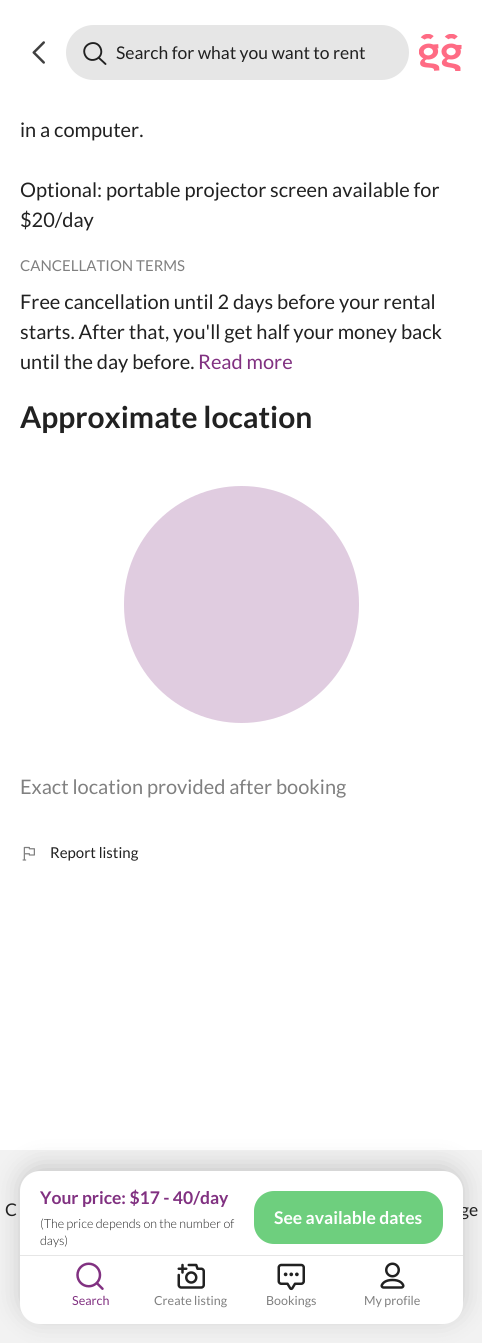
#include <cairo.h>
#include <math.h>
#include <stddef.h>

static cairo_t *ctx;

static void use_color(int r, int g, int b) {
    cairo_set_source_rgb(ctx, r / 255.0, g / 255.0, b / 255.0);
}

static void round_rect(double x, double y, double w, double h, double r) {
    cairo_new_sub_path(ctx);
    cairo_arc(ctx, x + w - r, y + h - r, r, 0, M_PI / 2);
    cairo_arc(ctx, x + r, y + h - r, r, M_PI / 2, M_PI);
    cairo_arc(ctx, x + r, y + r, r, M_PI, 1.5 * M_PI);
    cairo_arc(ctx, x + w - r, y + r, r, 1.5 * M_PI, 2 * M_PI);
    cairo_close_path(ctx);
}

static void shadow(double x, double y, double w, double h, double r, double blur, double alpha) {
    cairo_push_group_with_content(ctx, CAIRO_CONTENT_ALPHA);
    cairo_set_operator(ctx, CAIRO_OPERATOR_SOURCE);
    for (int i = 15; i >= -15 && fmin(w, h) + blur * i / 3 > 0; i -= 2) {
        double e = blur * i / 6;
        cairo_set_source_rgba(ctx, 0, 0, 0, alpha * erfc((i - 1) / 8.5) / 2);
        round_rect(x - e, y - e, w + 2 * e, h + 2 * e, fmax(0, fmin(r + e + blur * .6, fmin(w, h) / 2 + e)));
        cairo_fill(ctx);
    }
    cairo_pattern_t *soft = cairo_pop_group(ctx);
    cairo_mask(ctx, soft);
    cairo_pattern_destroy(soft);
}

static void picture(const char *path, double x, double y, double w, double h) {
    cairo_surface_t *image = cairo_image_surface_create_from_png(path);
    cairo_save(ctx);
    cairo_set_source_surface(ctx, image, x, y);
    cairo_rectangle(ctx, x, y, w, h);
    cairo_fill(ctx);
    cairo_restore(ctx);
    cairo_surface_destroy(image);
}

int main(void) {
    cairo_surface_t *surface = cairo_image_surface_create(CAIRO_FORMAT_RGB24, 482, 1343);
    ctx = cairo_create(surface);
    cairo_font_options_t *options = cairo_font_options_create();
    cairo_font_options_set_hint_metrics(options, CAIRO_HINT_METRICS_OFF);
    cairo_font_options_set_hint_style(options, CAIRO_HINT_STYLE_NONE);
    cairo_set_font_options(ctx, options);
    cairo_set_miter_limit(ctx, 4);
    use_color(255, 255, 255);
    cairo_paint(ctx);
    picture("img1.png", 32, 41, 13, 23);
    use_color(230, 230, 230);
    round_rect(66, 25, 343, 55, 27.5);
    cairo_fill(ctx);
    cairo_new_path(ctx);
    cairo_move_to(ctx, 85, 55);
    cairo_curve_to(ctx, 89.5, 65, 105, 58.5, 100.5, 48);
    cairo_curve_to(ctx, 96, 38, 80.5, 44.5, 85, 55);
    cairo_close_path(ctx);
    cairo_move_to(ctx, 98.5, 57.5);
    cairo_line_to(ctx, 105.5, 64);
    use_color(33, 33, 33);
    cairo_set_line_width(ctx, 1.9);
    cairo_set_line_cap(ctx, CAIRO_LINE_CAP_ROUND);
    cairo_set_line_join(ctx, CAIRO_LINE_JOIN_ROUND);
    cairo_stroke(ctx);
    cairo_select_font_face(ctx, "Lato", CAIRO_FONT_SLANT_NORMAL, CAIRO_FONT_WEIGHT_NORMAL);
    cairo_set_font_size(ctx, 17.5);
    cairo_move_to(ctx, 116, 59);
    cairo_show_text(ctx, "Search for what you want to rent");
    picture("img2.png", 419, 34, 43, 37);
    cairo_set_font_size(ctx, 20);
    cairo_move_to(ctx, 20, 137);
    cairo_show_text(ctx, "in a computer.");
    cairo_move_to(ctx, 20, 197);
    cairo_show_text(ctx, "Optional: portable projector screen available for");
    cairo_move_to(ctx, 20, 227);
    cairo_show_text(ctx, "$20/day");
    cairo_set_font_size(ctx, 15);
    use_color(128, 128, 128);
    cairo_move_to(ctx, 20, 271);
    cairo_show_text(ctx, "CANCELLATION TERMS");
    cairo_set_font_size(ctx, 20);
    use_color(33, 33, 33);
    cairo_move_to(ctx, 20, 309);
    cairo_show_text(ctx, "Free cancellation until 2 days before your rental");
    cairo_move_to(ctx, 20, 339);
    cairo_show_text(ctx, "starts. After that, you'll get half your money back");
    cairo_move_to(ctx, 20, 369);
    cairo_show_text(ctx, "until the day before.");
    use_color(129, 49, 129);
    cairo_move_to(ctx, 198, 369);
    cairo_show_text(ctx, "Read more");
    cairo_select_font_face(ctx, "Lato", CAIRO_FONT_SLANT_NORMAL, CAIRO_FONT_WEIGHT_BOLD);
    cairo_set_font_size(ctx, 30);
    use_color(33, 33, 33);
    cairo_move_to(ctx, 20, 428);
    cairo_show_text(ctx, "Approximate location");
    use_color(224, 204, 224);
    round_rect(124, 486, 235, 237, 117.5);
    cairo_fill(ctx);
    cairo_select_font_face(ctx, "Lato", CAIRO_FONT_SLANT_NORMAL, CAIRO_FONT_WEIGHT_NORMAL);
    cairo_set_font_size(ctx, 20);
    use_color(128, 128, 128);
    cairo_move_to(ctx, 20, 794);
    cairo_show_text(ctx, "Exact location provided after booking");
    picture("img3.png", 22, 846, 13, 15);
    cairo_set_font_size(ctx, 15);
    use_color(33, 33, 33);
    cairo_move_to(ctx, 50, 858);
    cairo_show_text(ctx, "Report listing");
    use_color(242, 242, 242);
    cairo_rectangle(ctx, 0, 1150, 482, 193);
    cairo_fill(ctx);
    cairo_set_font_size(ctx, 17.5);
    use_color(33, 33, 33);
    cairo_move_to(ctx, 5, 1216);
    cairo_show_text(ctx, "C");
    cairo_move_to(ctx, 460, 1216);
    cairo_show_text(ctx, "ge");
    use_color(26, 26, 26);
    shadow(20, 1166, 443, 153, 20, 12.5, 0.2);
    use_color(255, 255, 255);
    round_rect(20, 1171, 443, 153, 20);
    cairo_fill(ctx);
    cairo_select_font_face(ctx, "Lato", CAIRO_FONT_SLANT_NORMAL, CAIRO_FONT_WEIGHT_BOLD);
    use_color(129, 49, 129);
    cairo_move_to(ctx, 40, 1204);
    cairo_show_text(ctx, "Your price: $17 - 40/day");
    cairo_select_font_face(ctx, "Lato Light", CAIRO_FONT_SLANT_NORMAL, CAIRO_FONT_WEIGHT_NORMAL);
    cairo_set_font_size(ctx, 12.5);
    use_color(33, 33, 33);
    cairo_move_to(ctx, 40, 1228);
    cairo_show_text(ctx, "(The price depends on the number of");
    cairo_move_to(ctx, 40, 1245);
    cairo_show_text(ctx, "days)");
    use_color(110, 207, 126);
    round_rect(254, 1191, 189, 53, 20);
    cairo_fill(ctx);
    cairo_select_font_face(ctx, "Lato", CAIRO_FONT_SLANT_NORMAL, CAIRO_FONT_WEIGHT_BOLD);
    cairo_set_font_size(ctx, 17.5);
    use_color(255, 255, 255);
    cairo_move_to(ctx, 274, 1224);
    cairo_show_text(ctx, "See available dates");
    use_color(230, 230, 230);
    cairo_rectangle(ctx, 20, 1255, 443, 1);
    cairo_fill(ctx);
    picture("img4.png", 76, 1262, 28, 28);
    cairo_select_font_face(ctx, "Lato", CAIRO_FONT_SLANT_NORMAL, CAIRO_FONT_WEIGHT_NORMAL);
    cairo_set_font_size(ctx, 12.5);
    use_color(129, 49, 129);
    cairo_move_to(ctx, 72, 1305);
    cairo_show_text(ctx, "Search");
    picture("img5.png", 177, 1263, 28, 26);
    use_color(128, 128, 128);
    cairo_move_to(ctx, 154, 1305);
    cairo_show_text(ctx, "Create listing");
    picture("img6.png", 277, 1263, 28, 28);
    cairo_move_to(ctx, 266, 1305);
    cairo_show_text(ctx, "Bookings");
    picture("img7.png", 380, 1262, 25, 27);
    cairo_move_to(ctx, 364, 1305);
    cairo_show_text(ctx, "My profile");
    cairo_surface_write_to_png(surface, "result.png");
    cairo_font_options_destroy(options);
    cairo_destroy(ctx);
    cairo_surface_destroy(surface);
    return 0;
}
